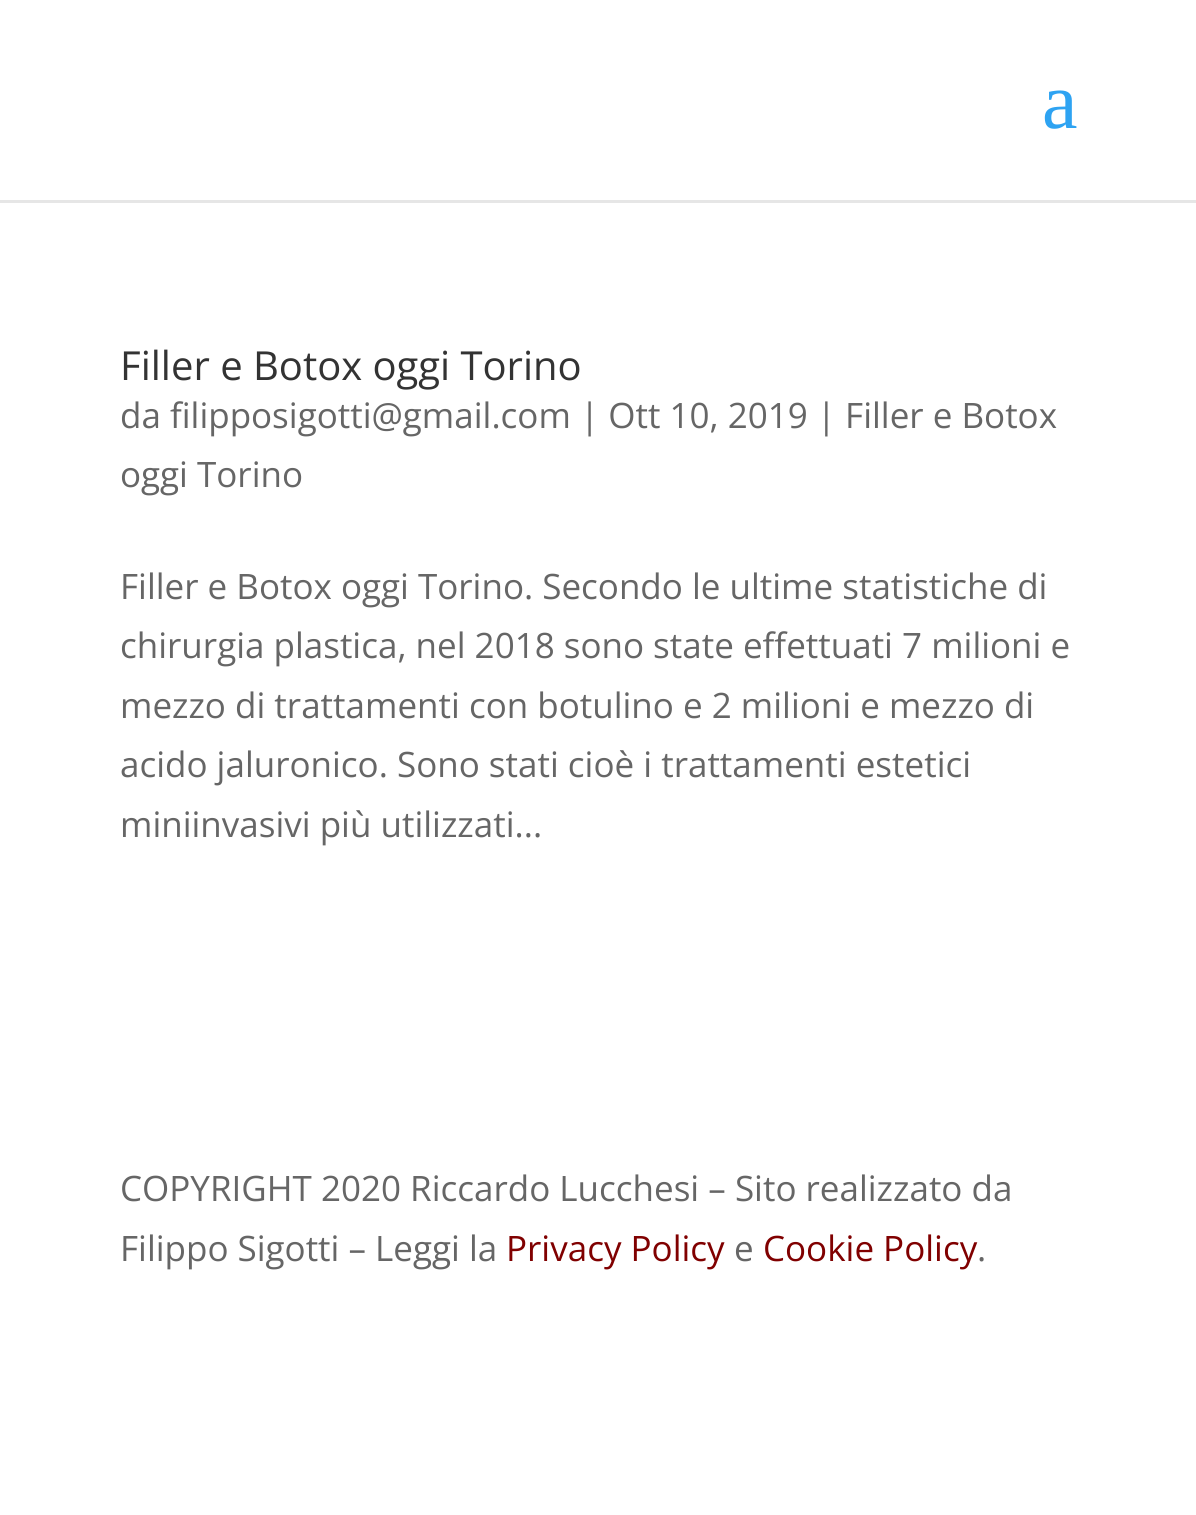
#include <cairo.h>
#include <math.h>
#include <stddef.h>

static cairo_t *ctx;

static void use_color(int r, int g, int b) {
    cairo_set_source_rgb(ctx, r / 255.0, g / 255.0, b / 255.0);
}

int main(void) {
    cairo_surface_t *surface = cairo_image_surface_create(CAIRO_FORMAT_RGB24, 1196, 1515);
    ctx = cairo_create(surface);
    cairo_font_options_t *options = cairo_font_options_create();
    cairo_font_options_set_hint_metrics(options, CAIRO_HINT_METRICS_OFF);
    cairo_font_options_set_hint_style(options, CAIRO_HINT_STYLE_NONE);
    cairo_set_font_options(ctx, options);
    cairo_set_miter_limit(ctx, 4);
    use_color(255, 255, 255);
    cairo_paint(ctx);
    use_color(230, 230, 230);
    cairo_new_path(ctx);
    cairo_move_to(ctx, 0, 200);
    cairo_line_to(ctx, 0, 203);
    cairo_line_to(ctx, 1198, 203);
    cairo_line_to(ctx, 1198, 3);
    cairo_line_to(ctx, 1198, 200);
    cairo_close_path(ctx);
    cairo_fill(ctx);
    cairo_select_font_face(ctx, "Liberation Serif", CAIRO_FONT_SLANT_NORMAL, CAIRO_FONT_WEIGHT_NORMAL);
    cairo_set_font_size(ctx, 80);
    use_color(46, 163, 242);
    cairo_move_to(ctx, 1042, 128);
    cairo_show_text(ctx, "a");
    cairo_select_font_face(ctx, "Open Sans", CAIRO_FONT_SLANT_NORMAL, CAIRO_FONT_WEIGHT_NORMAL);
    cairo_set_font_size(ctx, 40);
    use_color(51, 51, 51);
    cairo_move_to(ctx, 120, 380);
    cairo_show_text(ctx, "Filler e Botox oggi Torino");
    cairo_set_font_size(ctx, 35);
    use_color(102, 102, 102);
    cairo_move_to(ctx, 120, 428);
    cairo_show_text(ctx, "da filipposigotti@gmail.com | Ott 10, 2019 | Filler e Botox");
    cairo_move_to(ctx, 120, 487);
    cairo_show_text(ctx, "oggi Torino");
    cairo_move_to(ctx, 120, 599);
    cairo_show_text(ctx, "Filler e Botox oggi Torino. Secondo le ultime statistiche di");
    cairo_move_to(ctx, 120, 658);
    cairo_show_text(ctx, "chirurgia plastica, nel 2018 sono state effettuati 7 milioni e");
    cairo_move_to(ctx, 120, 718);
    cairo_show_text(ctx, "mezzo di trattamenti con botulino e 2 milioni e mezzo di");
    cairo_move_to(ctx, 120, 777);
    cairo_show_text(ctx, "acido jaluronico. Sono stati cioè i trattamenti estetici");
    cairo_move_to(ctx, 120, 837);
    cairo_show_text(ctx, "miniinvasivi più utilizzati...");
    cairo_move_to(ctx, 120, 1201);
    cairo_show_text(ctx, "COPYRIGHT 2020 Riccardo Lucchesi – Sito realizzato da");
    cairo_move_to(ctx, 120, 1261);
    cairo_show_text(ctx, "Filippo Sigotti – Leggi la");
    use_color(128, 0, 0);
    cairo_move_to(ctx, 506, 1261);
    cairo_show_text(ctx, "Privacy Policy");
    use_color(102, 102, 102);
    cairo_move_to(ctx, 734, 1261);
    cairo_show_text(ctx, "e");
    use_color(128, 0, 0);
    cairo_move_to(ctx, 763, 1261);
    cairo_show_text(ctx, "Cookie Policy");
    use_color(102, 102, 102);
    cairo_move_to(ctx, 977, 1261);
    cairo_show_text(ctx, ".");
    cairo_surface_write_to_png(surface, "result.png");
    cairo_font_options_destroy(options);
    cairo_destroy(ctx);
    cairo_surface_destroy(surface);
    return 0;
}
